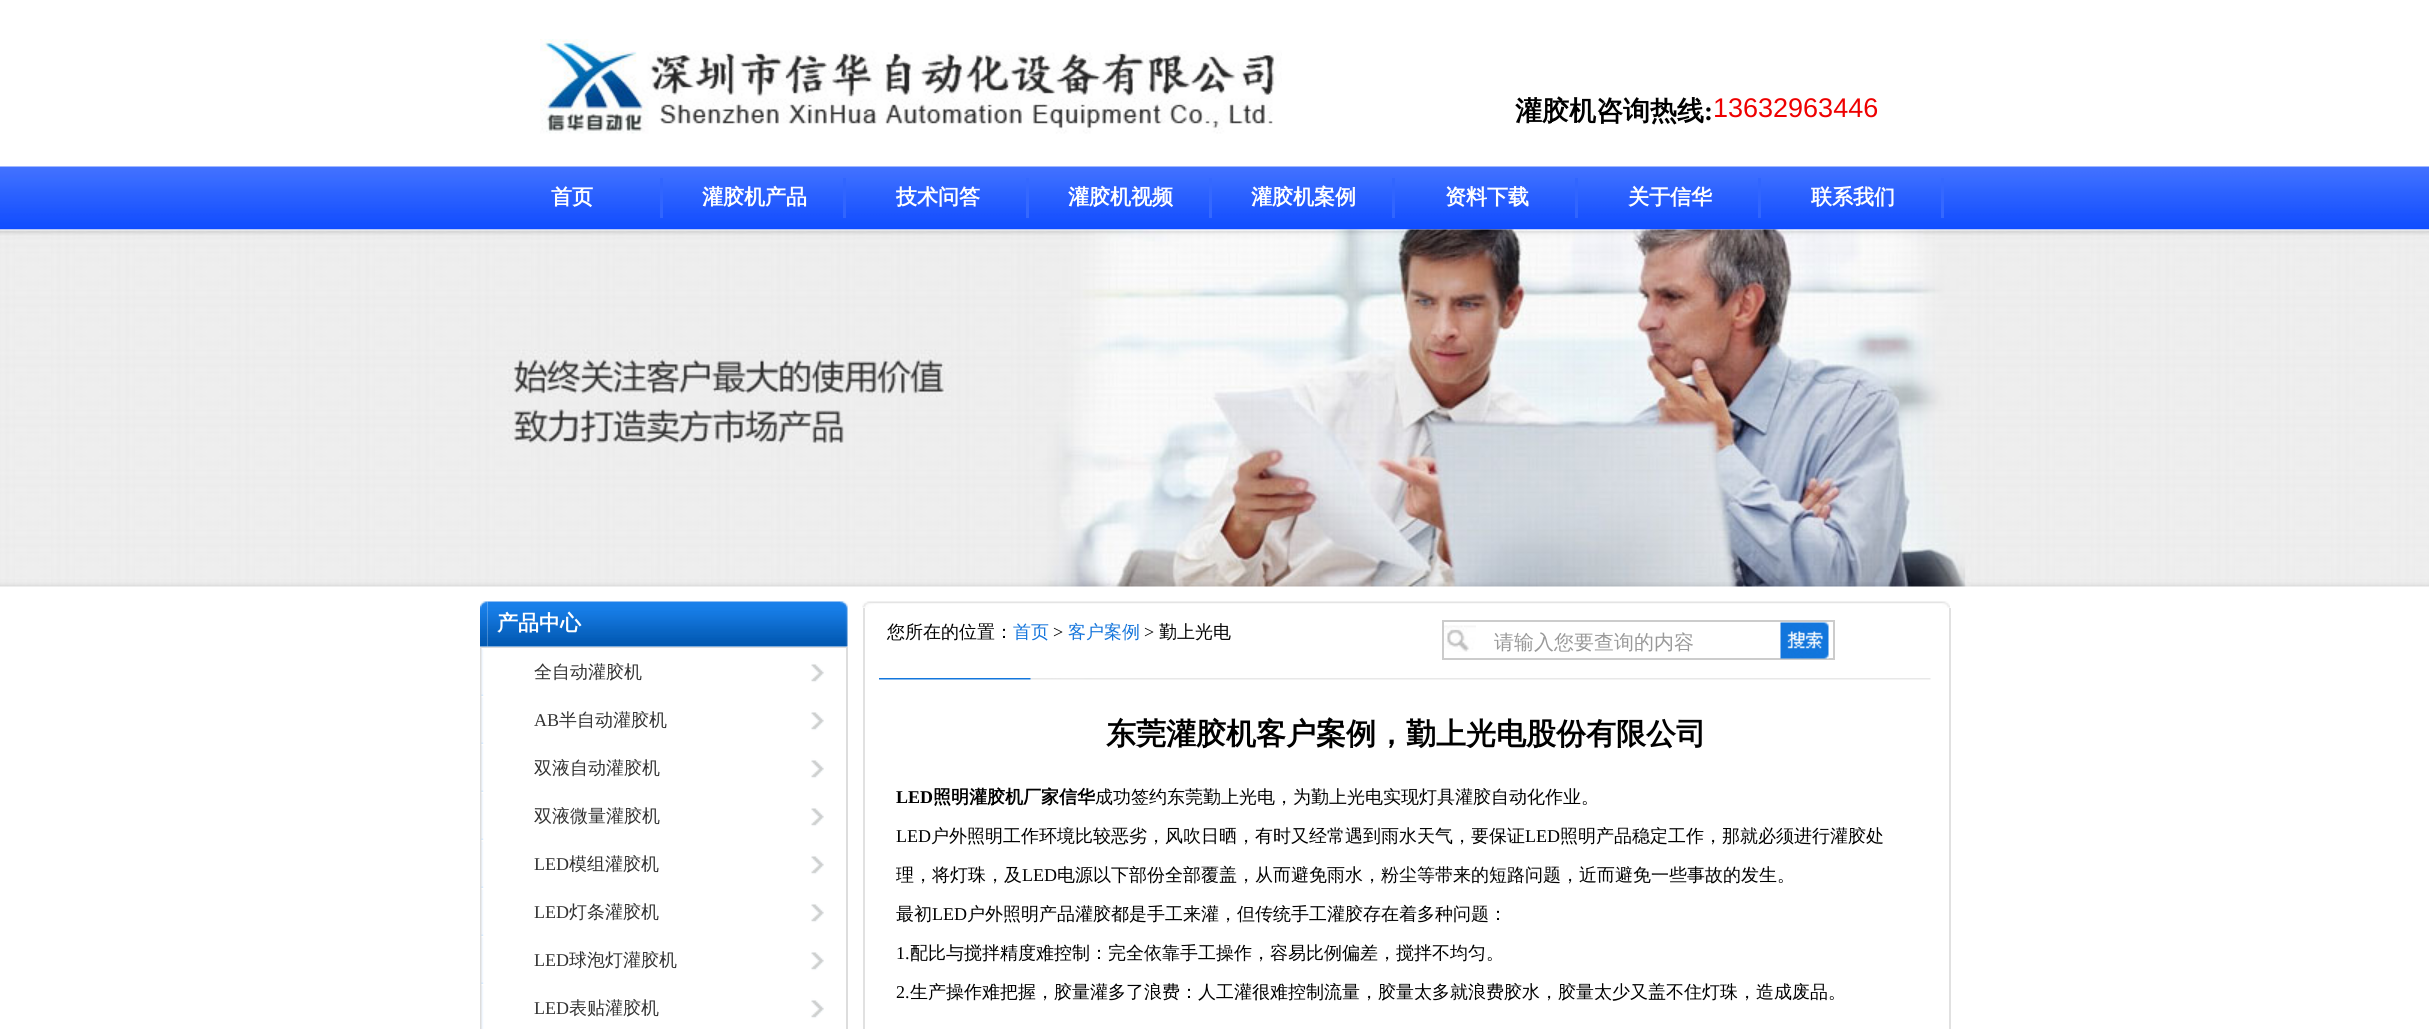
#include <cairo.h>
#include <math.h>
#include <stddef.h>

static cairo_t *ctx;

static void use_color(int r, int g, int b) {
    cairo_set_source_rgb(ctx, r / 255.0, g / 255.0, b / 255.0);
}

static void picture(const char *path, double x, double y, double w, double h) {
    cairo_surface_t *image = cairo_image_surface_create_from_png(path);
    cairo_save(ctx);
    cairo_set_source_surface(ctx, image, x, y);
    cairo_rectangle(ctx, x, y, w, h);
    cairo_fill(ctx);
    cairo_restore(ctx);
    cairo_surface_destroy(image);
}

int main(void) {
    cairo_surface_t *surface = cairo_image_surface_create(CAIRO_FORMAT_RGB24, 2429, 1029);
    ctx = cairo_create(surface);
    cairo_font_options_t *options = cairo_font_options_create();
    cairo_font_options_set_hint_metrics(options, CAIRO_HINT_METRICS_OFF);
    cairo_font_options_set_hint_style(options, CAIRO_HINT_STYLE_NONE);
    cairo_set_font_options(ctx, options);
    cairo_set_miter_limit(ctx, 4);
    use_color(255, 255, 255);
    cairo_paint(ctx);
    picture("img1.png", 540, 39, 742, 95);
    cairo_select_font_face(ctx, "WenQuanYi Zen Hei", CAIRO_FONT_SLANT_NORMAL, CAIRO_FONT_WEIGHT_BOLD);
    cairo_set_font_size(ctx, 27);
    use_color(0, 0, 0);
    cairo_move_to(ctx, 1515, 120);
    cairo_show_text(ctx, "灌胶机咨询热线");
    cairo_select_font_face(ctx, "Liberation Serif", CAIRO_FONT_SLANT_NORMAL, CAIRO_FONT_WEIGHT_BOLD);
    cairo_move_to(ctx, 1704, 120);
    cairo_show_text(ctx, ":");
    cairo_select_font_face(ctx, "Liberation Sans", CAIRO_FONT_SLANT_NORMAL, CAIRO_FONT_WEIGHT_NORMAL);
    use_color(238, 0, 0);
    cairo_move_to(ctx, 1713, 117);
    cairo_show_text(ctx, "13632963446");
    picture("img2.png", 0, 166, 2429, 64);
    use_color(49, 101, 254);
    cairo_rectangle(ctx, 660, 178, 3, 40);
    cairo_fill(ctx);
    cairo_select_font_face(ctx, "WenQuanYi Zen Hei", CAIRO_FONT_SLANT_NORMAL, CAIRO_FONT_WEIGHT_BOLD);
    cairo_set_font_size(ctx, 21);
    use_color(255, 255, 255);
    cairo_move_to(ctx, 551, 204);
    cairo_show_text(ctx, "首页");
    use_color(49, 101, 254);
    cairo_rectangle(ctx, 843, 178, 3, 40);
    cairo_fill(ctx);
    use_color(255, 255, 255);
    cairo_move_to(ctx, 702, 204);
    cairo_show_text(ctx, "灌胶机产品");
    use_color(53, 104, 254);
    cairo_rectangle(ctx, 1026, 178, 3, 40);
    cairo_fill(ctx);
    use_color(255, 255, 255);
    cairo_move_to(ctx, 896, 204);
    cairo_show_text(ctx, "技术问答");
    use_color(53, 104, 254);
    cairo_rectangle(ctx, 1209, 178, 3, 40);
    cairo_fill(ctx);
    use_color(255, 255, 255);
    cairo_move_to(ctx, 1068, 204);
    cairo_show_text(ctx, "灌胶机视频");
    use_color(49, 101, 254);
    cairo_rectangle(ctx, 1392, 178, 3, 40);
    cairo_fill(ctx);
    use_color(255, 255, 255);
    cairo_move_to(ctx, 1251, 204);
    cairo_show_text(ctx, "灌胶机案例");
    use_color(49, 101, 254);
    cairo_rectangle(ctx, 1575, 178, 3, 40);
    cairo_fill(ctx);
    use_color(255, 255, 255);
    cairo_move_to(ctx, 1445, 204);
    cairo_show_text(ctx, "资料下载");
    use_color(49, 101, 254);
    cairo_rectangle(ctx, 1758, 178, 3, 40);
    cairo_fill(ctx);
    use_color(255, 255, 255);
    cairo_move_to(ctx, 1628, 204);
    cairo_show_text(ctx, "关于信华");
    use_color(53, 104, 254);
    cairo_rectangle(ctx, 1941, 178, 3, 40);
    cairo_fill(ctx);
    use_color(255, 255, 255);
    cairo_move_to(ctx, 1811, 204);
    cairo_show_text(ctx, "联系我们");
    picture("img3.png", 0, 229, 2429, 358);
    picture("img4.png", 480, 601, 8, 46);
    picture("img5.png", 487, 601, 353, 46);
    cairo_move_to(ctx, 497, 630);
    cairo_show_text(ctx, "产品中心");
    picture("img6.png", 840, 601, 8, 46);
    cairo_rectangle(ctx, 481, 648, 366, 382);
    use_color(221, 221, 221);
    cairo_stroke(ctx);
    picture("img7.png", 481, 648, 365, 48);
    cairo_select_font_face(ctx, "WenQuanYi Zen Hei Medium", CAIRO_FONT_SLANT_NORMAL, CAIRO_FONT_WEIGHT_NORMAL);
    cairo_set_font_size(ctx, 18);
    use_color(51, 51, 51);
    cairo_move_to(ctx, 534, 678);
    cairo_show_text(ctx, "全自动灌胶机");
    picture("img8.png", 481, 696, 343, 48);
    cairo_select_font_face(ctx, "Liberation Serif", CAIRO_FONT_SLANT_NORMAL, CAIRO_FONT_WEIGHT_NORMAL);
    cairo_move_to(ctx, 534, 726);
    cairo_show_text(ctx, "AB");
    cairo_select_font_face(ctx, "WenQuanYi Zen Hei Medium", CAIRO_FONT_SLANT_NORMAL, CAIRO_FONT_WEIGHT_NORMAL);
    cairo_move_to(ctx, 559, 726);
    cairo_show_text(ctx, "半自动灌胶机");
    picture("img8.png", 481, 744, 343, 48);
    cairo_move_to(ctx, 534, 774);
    cairo_show_text(ctx, "双液自动灌胶机");
    picture("img8.png", 481, 792, 343, 48);
    cairo_move_to(ctx, 534, 822);
    cairo_show_text(ctx, "双液微量灌胶机");
    picture("img8.png", 481, 840, 343, 48);
    cairo_select_font_face(ctx, "Liberation Serif", CAIRO_FONT_SLANT_NORMAL, CAIRO_FONT_WEIGHT_NORMAL);
    cairo_move_to(ctx, 534, 870);
    cairo_show_text(ctx, "LED");
    cairo_select_font_face(ctx, "WenQuanYi Zen Hei Medium", CAIRO_FONT_SLANT_NORMAL, CAIRO_FONT_WEIGHT_NORMAL);
    cairo_move_to(ctx, 569, 870);
    cairo_show_text(ctx, "模组灌胶机");
    picture("img8.png", 481, 888, 343, 48);
    cairo_select_font_face(ctx, "Liberation Serif", CAIRO_FONT_SLANT_NORMAL, CAIRO_FONT_WEIGHT_NORMAL);
    cairo_move_to(ctx, 534, 918);
    cairo_show_text(ctx, "LED");
    cairo_select_font_face(ctx, "WenQuanYi Zen Hei Medium", CAIRO_FONT_SLANT_NORMAL, CAIRO_FONT_WEIGHT_NORMAL);
    cairo_move_to(ctx, 569, 918);
    cairo_show_text(ctx, "灯条灌胶机");
    picture("img8.png", 481, 936, 343, 48);
    cairo_select_font_face(ctx, "Liberation Serif", CAIRO_FONT_SLANT_NORMAL, CAIRO_FONT_WEIGHT_NORMAL);
    cairo_move_to(ctx, 534, 966);
    cairo_show_text(ctx, "LED");
    cairo_select_font_face(ctx, "WenQuanYi Zen Hei Medium", CAIRO_FONT_SLANT_NORMAL, CAIRO_FONT_WEIGHT_NORMAL);
    cairo_move_to(ctx, 569, 966);
    cairo_show_text(ctx, "球泡灯灌胶机");
    picture("img9.png", 481, 984, 343, 45);
    cairo_select_font_face(ctx, "Liberation Serif", CAIRO_FONT_SLANT_NORMAL, CAIRO_FONT_WEIGHT_NORMAL);
    cairo_move_to(ctx, 534, 1014);
    cairo_show_text(ctx, "LED");
    cairo_select_font_face(ctx, "WenQuanYi Zen Hei Medium", CAIRO_FONT_SLANT_NORMAL, CAIRO_FONT_WEIGHT_NORMAL);
    cairo_move_to(ctx, 569, 1014);
    cairo_show_text(ctx, "表贴灌胶机");
    picture("img10.png", 862, 601, 1088, 7);
    use_color(225, 225, 225);
    cairo_rectangle(ctx, 1949, 608, 2, 421);
    cairo_fill(ctx);
    cairo_rectangle(ctx, 863, 608, 2, 421);
    cairo_fill(ctx);
    use_color(0, 0, 0);
    cairo_move_to(ctx, 887, 638);
    cairo_show_text(ctx, "您所在的位置：");
    use_color(19, 116, 219);
    cairo_move_to(ctx, 1013, 638);
    cairo_show_text(ctx, "首页");
    cairo_select_font_face(ctx, "Liberation Serif", CAIRO_FONT_SLANT_NORMAL, CAIRO_FONT_WEIGHT_NORMAL);
    use_color(0, 0, 0);
    cairo_move_to(ctx, 1053, 638);
    cairo_show_text(ctx, ">");
    cairo_select_font_face(ctx, "WenQuanYi Zen Hei Medium", CAIRO_FONT_SLANT_NORMAL, CAIRO_FONT_WEIGHT_NORMAL);
    use_color(19, 116, 219);
    cairo_move_to(ctx, 1068, 638);
    cairo_show_text(ctx, "客户案例");
    cairo_select_font_face(ctx, "Liberation Serif", CAIRO_FONT_SLANT_NORMAL, CAIRO_FONT_WEIGHT_NORMAL);
    use_color(0, 0, 0);
    cairo_move_to(ctx, 1144, 638);
    cairo_show_text(ctx, ">");
    cairo_select_font_face(ctx, "WenQuanYi Zen Hei Medium", CAIRO_FONT_SLANT_NORMAL, CAIRO_FONT_WEIGHT_NORMAL);
    cairo_move_to(ctx, 1159, 638);
    cairo_show_text(ctx, "勤上光电");
    picture("img11.png", 1444, 625, 32, 27);
    cairo_rectangle(ctx, 1443, 621, 391, 38);
    use_color(204, 204, 204);
    cairo_stroke(ctx);
    cairo_set_font_size(ctx, 20);
    use_color(153, 153, 153);
    cairo_move_to(ctx, 1494, 649);
    cairo_show_text(ctx, "请输入您要查询的内容");
    picture("img12.png", 1780, 622, 49, 37);
    picture("img13.png", 879, 678, 1052, 2);
    cairo_select_font_face(ctx, "WenQuanYi Zen Hei", CAIRO_FONT_SLANT_NORMAL, CAIRO_FONT_WEIGHT_BOLD);
    cairo_set_font_size(ctx, 30);
    use_color(0, 0, 0);
    cairo_move_to(ctx, 1106, 744);
    cairo_show_text(ctx, "东莞灌胶机客户案例，勤上光电股份有限公司");
    cairo_select_font_face(ctx, "Liberation Serif", CAIRO_FONT_SLANT_NORMAL, CAIRO_FONT_WEIGHT_BOLD);
    cairo_set_font_size(ctx, 18);
    cairo_move_to(ctx, 896, 803);
    cairo_show_text(ctx, "LED");
    cairo_select_font_face(ctx, "WenQuanYi Zen Hei", CAIRO_FONT_SLANT_NORMAL, CAIRO_FONT_WEIGHT_BOLD);
    cairo_move_to(ctx, 933, 803);
    cairo_show_text(ctx, "照明灌胶机厂家信华");
    cairo_select_font_face(ctx, "WenQuanYi Zen Hei Medium", CAIRO_FONT_SLANT_NORMAL, CAIRO_FONT_WEIGHT_NORMAL);
    cairo_move_to(ctx, 1095, 803);
    cairo_show_text(ctx, "成功签约东莞勤上光电，为勤上光电实现灯具灌胶自动化作业。");
    cairo_select_font_face(ctx, "Liberation Serif", CAIRO_FONT_SLANT_NORMAL, CAIRO_FONT_WEIGHT_NORMAL);
    cairo_move_to(ctx, 896, 842);
    cairo_show_text(ctx, "LED");
    cairo_select_font_face(ctx, "WenQuanYi Zen Hei Medium", CAIRO_FONT_SLANT_NORMAL, CAIRO_FONT_WEIGHT_NORMAL);
    cairo_move_to(ctx, 931, 842);
    cairo_show_text(ctx, "户外照明工作环境比较恶劣，风吹日晒，有时又经常遇到雨水天气，要保证");
    cairo_select_font_face(ctx, "Liberation Serif", CAIRO_FONT_SLANT_NORMAL, CAIRO_FONT_WEIGHT_NORMAL);
    cairo_move_to(ctx, 1525, 842);
    cairo_show_text(ctx, "LED");
    cairo_select_font_face(ctx, "WenQuanYi Zen Hei Medium", CAIRO_FONT_SLANT_NORMAL, CAIRO_FONT_WEIGHT_NORMAL);
    cairo_move_to(ctx, 1560, 842);
    cairo_show_text(ctx, "照明产品稳定工作，那就必须进行灌胶处");
    cairo_move_to(ctx, 896, 881);
    cairo_show_text(ctx, "理，将灯珠，及");
    cairo_select_font_face(ctx, "Liberation Serif", CAIRO_FONT_SLANT_NORMAL, CAIRO_FONT_WEIGHT_NORMAL);
    cairo_move_to(ctx, 1022, 881);
    cairo_show_text(ctx, "LED");
    cairo_select_font_face(ctx, "WenQuanYi Zen Hei Medium", CAIRO_FONT_SLANT_NORMAL, CAIRO_FONT_WEIGHT_NORMAL);
    cairo_move_to(ctx, 1057, 881);
    cairo_show_text(ctx, "电源以下部份全部覆盖，从而避免雨水，粉尘等带来的短路问题，近而避免一些事故的发生。");
    cairo_move_to(ctx, 896, 920);
    cairo_show_text(ctx, "最初");
    cairo_select_font_face(ctx, "Liberation Serif", CAIRO_FONT_SLANT_NORMAL, CAIRO_FONT_WEIGHT_NORMAL);
    cairo_move_to(ctx, 932, 920);
    cairo_show_text(ctx, "LED");
    cairo_select_font_face(ctx, "WenQuanYi Zen Hei Medium", CAIRO_FONT_SLANT_NORMAL, CAIRO_FONT_WEIGHT_NORMAL);
    cairo_move_to(ctx, 967, 920);
    cairo_show_text(ctx, "户外照明产品灌胶都是手工来灌，但传统手工灌胶存在着多种问题：");
    cairo_select_font_face(ctx, "Liberation Serif", CAIRO_FONT_SLANT_NORMAL, CAIRO_FONT_WEIGHT_NORMAL);
    cairo_move_to(ctx, 896, 959);
    cairo_show_text(ctx, "1.");
    cairo_select_font_face(ctx, "WenQuanYi Zen Hei Medium", CAIRO_FONT_SLANT_NORMAL, CAIRO_FONT_WEIGHT_NORMAL);
    cairo_move_to(ctx, 910, 959);
    cairo_show_text(ctx, "配比与搅拌精度难控制：完全依靠手工操作，容易比例偏差，搅拌不均匀。");
    cairo_select_font_face(ctx, "Liberation Serif", CAIRO_FONT_SLANT_NORMAL, CAIRO_FONT_WEIGHT_NORMAL);
    cairo_move_to(ctx, 896, 998);
    cairo_show_text(ctx, "2.");
    cairo_select_font_face(ctx, "WenQuanYi Zen Hei Medium", CAIRO_FONT_SLANT_NORMAL, CAIRO_FONT_WEIGHT_NORMAL);
    cairo_move_to(ctx, 910, 998);
    cairo_show_text(ctx, "生产操作难把握，胶量灌多了浪费：人工灌很难控制流量，胶量太多就浪费胶水，胶量太少又盖不住灯珠，造成废品。");
    cairo_surface_write_to_png(surface, "result.png");
    cairo_font_options_destroy(options);
    cairo_destroy(ctx);
    cairo_surface_destroy(surface);
    return 0;
}
